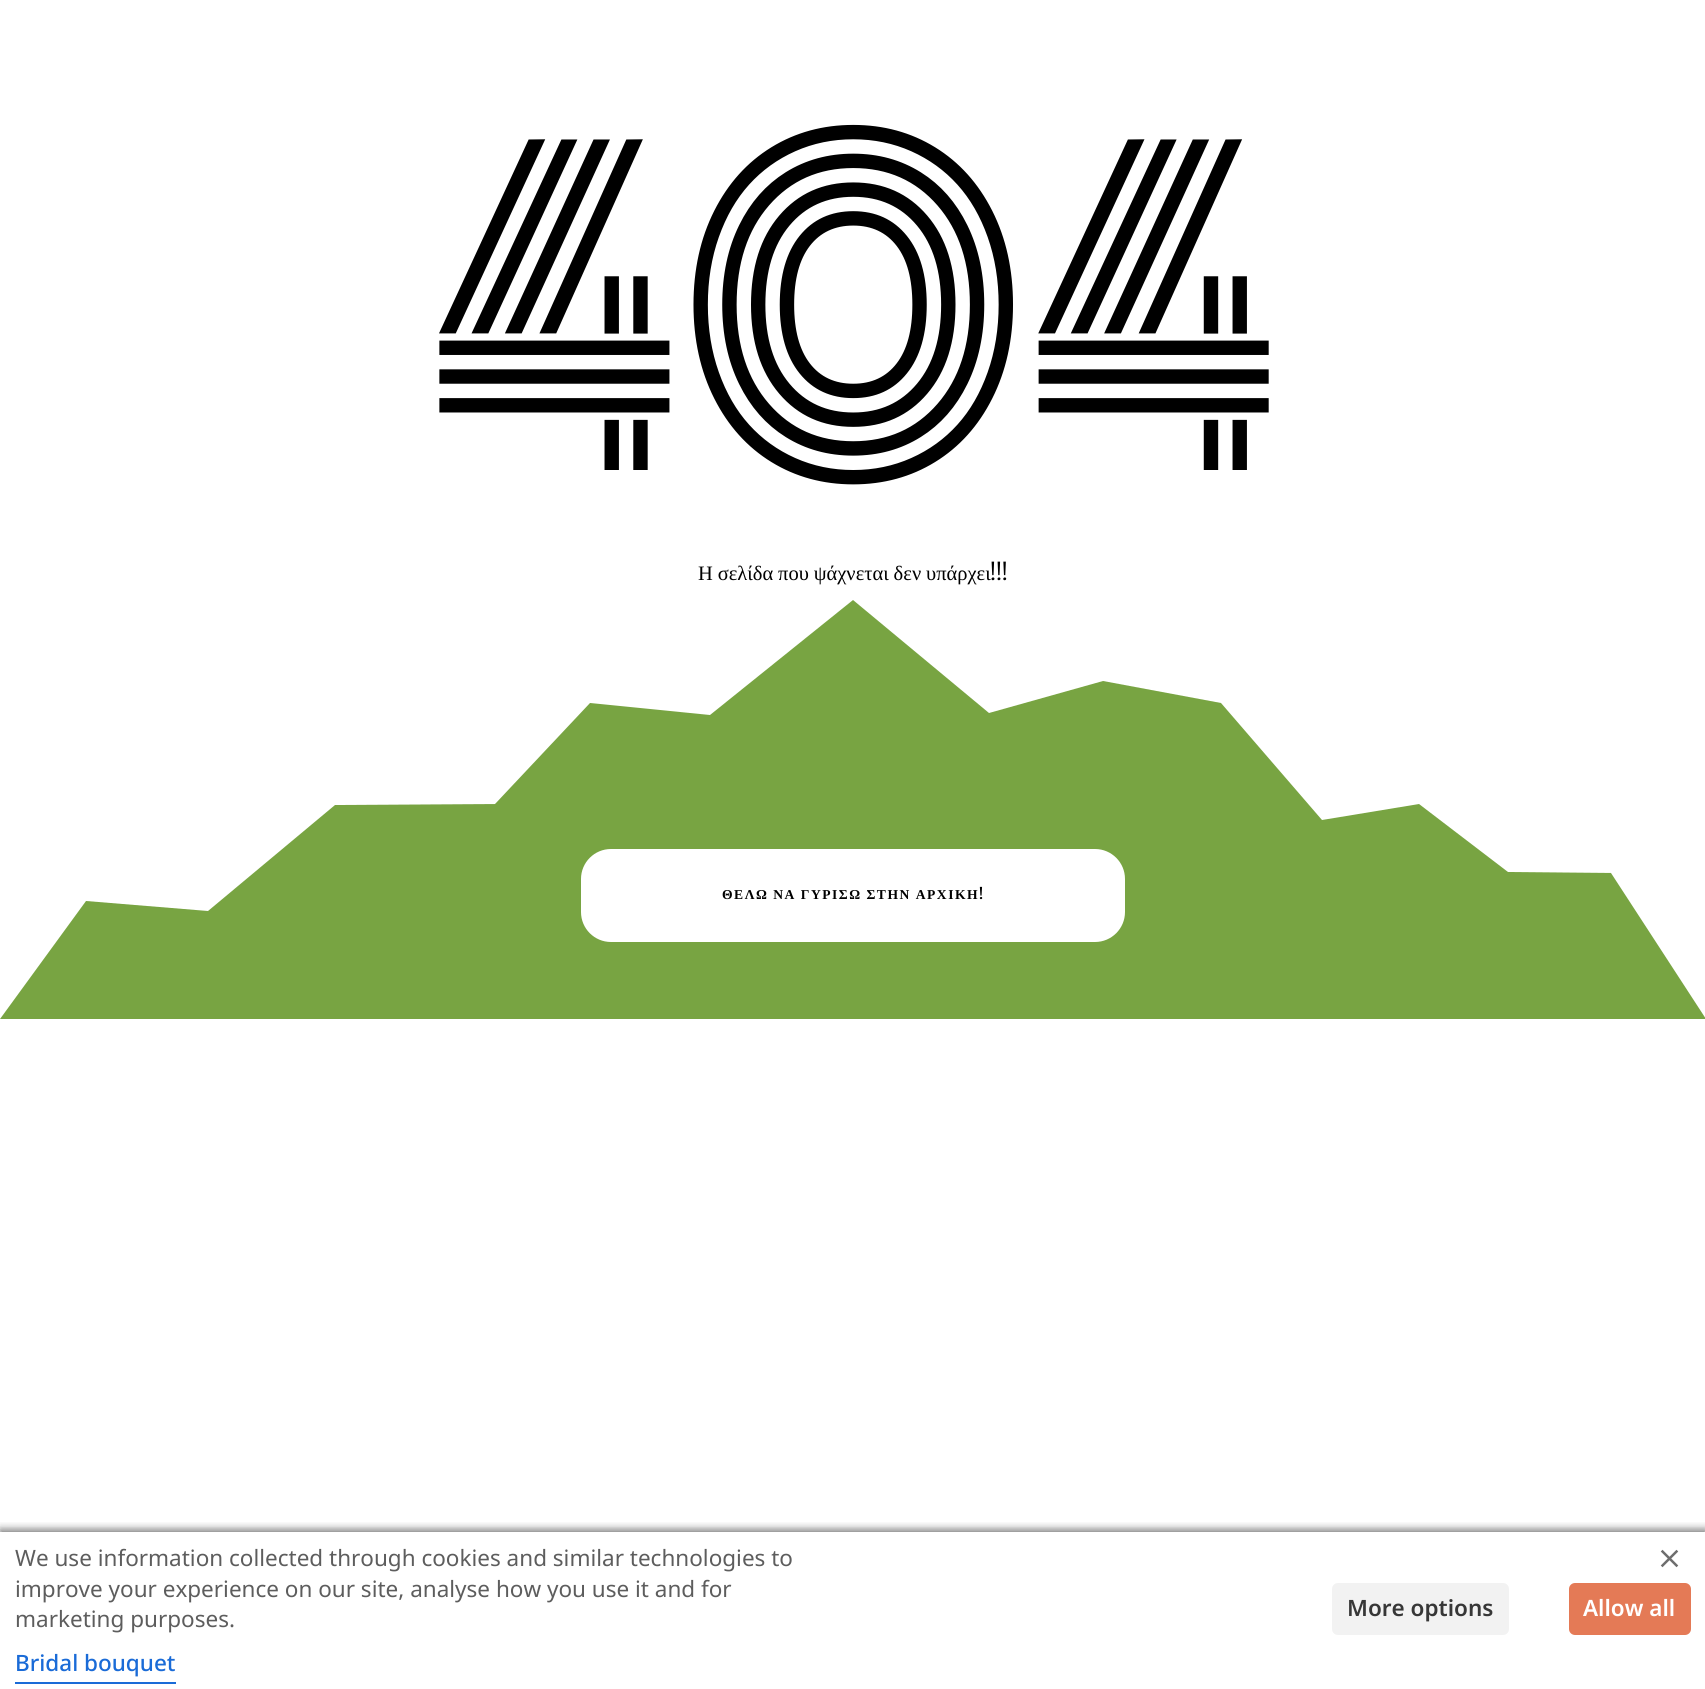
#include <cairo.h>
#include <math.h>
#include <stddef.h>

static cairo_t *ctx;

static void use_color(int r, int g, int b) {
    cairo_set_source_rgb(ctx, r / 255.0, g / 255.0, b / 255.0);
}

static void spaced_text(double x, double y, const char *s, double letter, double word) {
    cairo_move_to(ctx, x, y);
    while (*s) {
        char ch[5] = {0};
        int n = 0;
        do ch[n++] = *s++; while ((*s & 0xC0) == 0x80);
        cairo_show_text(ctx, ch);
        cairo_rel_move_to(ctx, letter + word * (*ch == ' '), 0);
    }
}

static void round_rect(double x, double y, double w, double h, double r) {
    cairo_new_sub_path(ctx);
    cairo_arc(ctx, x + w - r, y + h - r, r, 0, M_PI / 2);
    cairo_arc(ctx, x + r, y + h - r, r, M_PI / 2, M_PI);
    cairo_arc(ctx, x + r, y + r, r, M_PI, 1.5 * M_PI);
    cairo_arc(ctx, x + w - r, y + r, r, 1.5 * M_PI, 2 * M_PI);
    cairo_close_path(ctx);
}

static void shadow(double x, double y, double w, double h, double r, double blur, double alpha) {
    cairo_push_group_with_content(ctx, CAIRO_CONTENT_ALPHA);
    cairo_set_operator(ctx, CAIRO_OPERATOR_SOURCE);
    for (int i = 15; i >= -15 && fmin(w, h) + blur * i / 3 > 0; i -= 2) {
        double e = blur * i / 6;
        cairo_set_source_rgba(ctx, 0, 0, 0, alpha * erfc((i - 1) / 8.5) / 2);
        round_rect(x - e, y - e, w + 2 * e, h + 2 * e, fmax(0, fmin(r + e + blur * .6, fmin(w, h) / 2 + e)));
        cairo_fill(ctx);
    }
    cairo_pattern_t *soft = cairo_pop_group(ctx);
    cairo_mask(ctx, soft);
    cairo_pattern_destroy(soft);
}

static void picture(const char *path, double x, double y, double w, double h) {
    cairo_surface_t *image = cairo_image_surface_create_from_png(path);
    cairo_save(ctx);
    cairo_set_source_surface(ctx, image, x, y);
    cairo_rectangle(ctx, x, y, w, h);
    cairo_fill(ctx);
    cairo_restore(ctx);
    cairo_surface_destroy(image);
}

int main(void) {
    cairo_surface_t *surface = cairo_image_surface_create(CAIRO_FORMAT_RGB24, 1705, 1689);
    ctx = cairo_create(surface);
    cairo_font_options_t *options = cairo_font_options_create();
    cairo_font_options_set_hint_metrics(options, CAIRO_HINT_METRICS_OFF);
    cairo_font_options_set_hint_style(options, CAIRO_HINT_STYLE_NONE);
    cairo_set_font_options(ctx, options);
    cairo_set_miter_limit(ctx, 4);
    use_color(255, 255, 255);
    cairo_paint(ctx);
    cairo_select_font_face(ctx, "Monoton", CAIRO_FONT_SLANT_NORMAL, CAIRO_FONT_WEIGHT_NORMAL);
    cairo_set_font_size(ctx, 409);
    use_color(0, 0, 0);
    cairo_move_to(ctx, 426, 470);
    cairo_show_text(ctx, "404");
    cairo_select_font_face(ctx, "Liberation Serif", CAIRO_FONT_SLANT_NORMAL, CAIRO_FONT_WEIGHT_NORMAL);
    cairo_set_font_size(ctx, 20.5);
    spaced_text(698, 580, "Η σελίδα που ψάχνεται δεν υπάρχει", 0, -0.25);
    cairo_select_font_face(ctx, "Merriweather", CAIRO_FONT_SLANT_NORMAL, CAIRO_FONT_WEIGHT_NORMAL);
    cairo_move_to(ctx, 990, 580);
    cairo_show_text(ctx, "!!!");
    use_color(120, 164, 66);
    cairo_new_path(ctx);
    cairo_move_to(ctx, 208, 911);
    cairo_line_to(ctx, 335, 805);
    cairo_line_to(ctx, 495, 804);
    cairo_line_to(ctx, 590, 703);
    cairo_line_to(ctx, 710, 715);
    cairo_line_to(ctx, 853, 600);
    cairo_line_to(ctx, 989, 713);
    cairo_line_to(ctx, 1103, 681);
    cairo_line_to(ctx, 1221, 703);
    cairo_line_to(ctx, 1322, 820);
    cairo_line_to(ctx, 1419, 804);
    cairo_line_to(ctx, 1508, 872);
    cairo_line_to(ctx, 1611, 873);
    cairo_line_to(ctx, 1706, 1019);
    cairo_line_to(ctx, 0, 1019);
    cairo_line_to(ctx, 86, 901);
    cairo_close_path(ctx);
    cairo_fill(ctx);
    use_color(255, 255, 255);
    round_rect(581, 849, 544, 93, 30);
    cairo_fill(ctx);
    cairo_select_font_face(ctx, "Liberation Serif", CAIRO_FONT_SLANT_NORMAL, CAIRO_FONT_WEIGHT_BOLD);
    cairo_set_font_size(ctx, 13.6);
    use_color(0, 0, 0);
    spaced_text(722, 899, "ΘΕΛΩ ΝΑ ΓΥΡΙΣΩ ΣΤΗΝ ΑΡΧΙΚΗ", 1.5, 0);
    cairo_select_font_face(ctx, "Merriweather", CAIRO_FONT_SLANT_NORMAL, CAIRO_FONT_WEIGHT_BOLD);
    spaced_text(979, 899, "!", 1.5, 0);
    cairo_save(ctx);
    cairo_rectangle(ctx, 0, 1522, 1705, 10);
    cairo_clip(ctx);
    use_color(0, 0, 0);
    shadow(0, 1529, 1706, 157, 0, 4, 0.5);
    cairo_restore(ctx);
    cairo_select_font_face(ctx, "Noto Sans", CAIRO_FONT_SLANT_NORMAL, CAIRO_FONT_WEIGHT_NORMAL);
    cairo_set_font_size(ctx, 22.5);
    use_color(93, 93, 93);
    cairo_move_to(ctx, 15, 1566);
    cairo_show_text(ctx, "We use information collected through cookies and similar technologies to");
    cairo_move_to(ctx, 15, 1597);
    cairo_show_text(ctx, "improve your experience on our site, analyse how you use it and for");
    cairo_move_to(ctx, 15, 1627);
    cairo_show_text(ctx, "marketing purposes.");
    cairo_select_font_face(ctx, "Noto Sans Medium", CAIRO_FONT_SLANT_NORMAL, CAIRO_FONT_WEIGHT_NORMAL);
    use_color(26, 107, 215);
    cairo_move_to(ctx, 15, 1671);
    cairo_show_text(ctx, "Bridal bouquet");
    cairo_rectangle(ctx, 15, 1682, 161, 2);
    cairo_fill(ctx);
    use_color(242, 242, 242);
    round_rect(1332, 1583, 177, 52, 6);
    cairo_fill(ctx);
    cairo_select_font_face(ctx, "Noto Sans SemiBold", CAIRO_FONT_SLANT_NORMAL, CAIRO_FONT_WEIGHT_NORMAL);
    use_color(55, 55, 55);
    cairo_move_to(ctx, 1347, 1616);
    cairo_show_text(ctx, "More options");
    use_color(228, 122, 86);
    round_rect(1569, 1583, 122, 52, 6);
    cairo_fill(ctx);
    use_color(255, 255, 255);
    cairo_move_to(ctx, 1583, 1616);
    cairo_show_text(ctx, "Allow all");
    picture("img1.png", 1660, 1549, 19, 19);
    cairo_surface_write_to_png(surface, "result.png");
    cairo_font_options_destroy(options);
    cairo_destroy(ctx);
    cairo_surface_destroy(surface);
    return 0;
}
